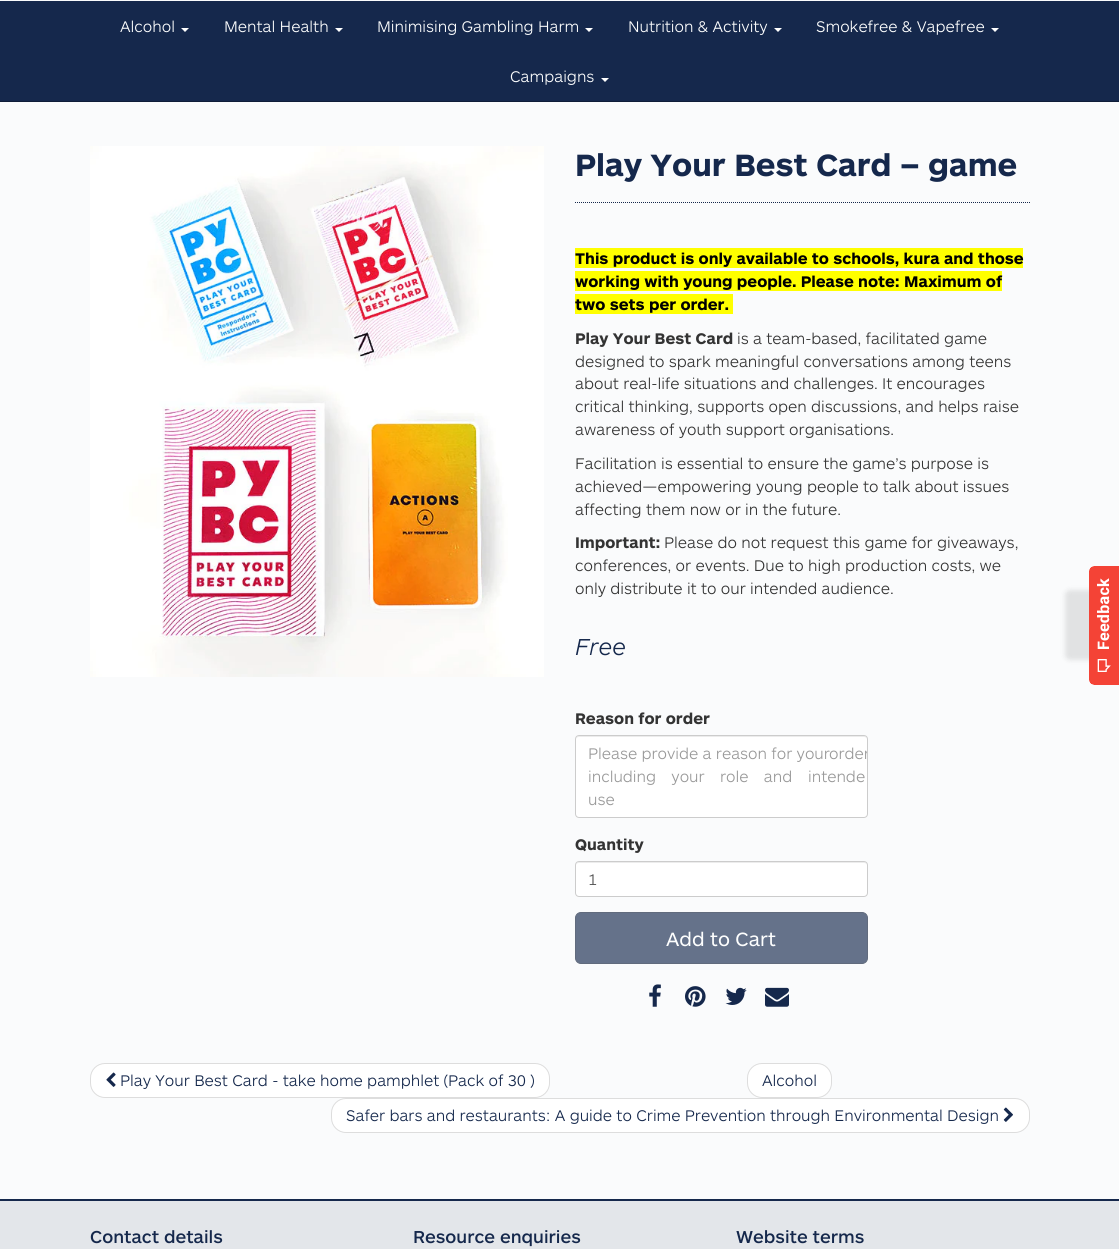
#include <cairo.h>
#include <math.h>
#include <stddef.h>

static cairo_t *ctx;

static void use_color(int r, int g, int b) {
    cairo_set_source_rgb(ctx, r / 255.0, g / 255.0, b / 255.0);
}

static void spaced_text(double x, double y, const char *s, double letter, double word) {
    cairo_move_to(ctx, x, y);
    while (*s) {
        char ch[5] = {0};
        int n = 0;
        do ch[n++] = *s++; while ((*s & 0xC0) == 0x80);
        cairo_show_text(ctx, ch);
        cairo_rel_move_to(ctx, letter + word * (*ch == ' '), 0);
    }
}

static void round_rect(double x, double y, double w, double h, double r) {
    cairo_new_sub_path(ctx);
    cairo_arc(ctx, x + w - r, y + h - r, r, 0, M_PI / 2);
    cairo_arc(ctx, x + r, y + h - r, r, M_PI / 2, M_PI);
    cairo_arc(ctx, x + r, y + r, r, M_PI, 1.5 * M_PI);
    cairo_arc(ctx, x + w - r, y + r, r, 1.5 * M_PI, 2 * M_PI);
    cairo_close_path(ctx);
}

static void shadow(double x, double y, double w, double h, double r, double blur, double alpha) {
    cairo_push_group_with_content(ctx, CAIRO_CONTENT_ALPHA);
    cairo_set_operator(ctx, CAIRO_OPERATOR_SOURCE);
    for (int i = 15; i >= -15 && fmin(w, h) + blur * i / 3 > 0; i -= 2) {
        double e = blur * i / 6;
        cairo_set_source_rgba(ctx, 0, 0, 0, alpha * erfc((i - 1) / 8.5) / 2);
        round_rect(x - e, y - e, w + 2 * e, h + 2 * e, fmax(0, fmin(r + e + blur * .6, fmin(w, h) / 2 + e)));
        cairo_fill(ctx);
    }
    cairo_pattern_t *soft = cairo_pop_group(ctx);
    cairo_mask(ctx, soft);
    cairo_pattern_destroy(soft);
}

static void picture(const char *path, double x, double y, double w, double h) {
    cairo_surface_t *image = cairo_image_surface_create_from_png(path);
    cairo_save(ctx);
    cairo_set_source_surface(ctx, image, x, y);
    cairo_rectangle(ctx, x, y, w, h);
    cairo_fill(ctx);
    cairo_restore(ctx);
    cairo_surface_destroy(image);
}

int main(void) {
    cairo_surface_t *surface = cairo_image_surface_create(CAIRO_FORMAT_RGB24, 1119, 1249);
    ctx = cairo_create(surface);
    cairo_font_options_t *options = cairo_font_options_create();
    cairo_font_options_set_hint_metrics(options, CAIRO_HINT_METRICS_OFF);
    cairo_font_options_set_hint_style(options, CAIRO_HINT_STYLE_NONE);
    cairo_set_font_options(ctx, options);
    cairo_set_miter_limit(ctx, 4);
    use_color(250, 251, 252);
    cairo_paint(ctx);
    use_color(21, 40, 76);
    cairo_rectangle(ctx, 0, 1, 1119, 100);
    cairo_fill(ctx);
    use_color(15, 29, 56);
    cairo_rectangle(ctx, 0, 101, 1119, 1);
    cairo_fill(ctx);
    cairo_select_font_face(ctx, "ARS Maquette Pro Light", CAIRO_FONT_SLANT_NORMAL, CAIRO_FONT_WEIGHT_NORMAL);
    cairo_set_font_size(ctx, 16);
    use_color(253, 254, 254);
    cairo_move_to(ctx, 120, 32);
    cairo_show_text(ctx, "Alcohol");
    use_color(255, 255, 255);
    cairo_new_path(ctx);
    cairo_move_to(ctx, 181, 28);
    cairo_line_to(ctx, 189, 28);
    cairo_line_to(ctx, 185, 32);
    cairo_close_path(ctx);
    cairo_fill(ctx);
    use_color(253, 254, 254);
    cairo_move_to(ctx, 224, 32);
    cairo_show_text(ctx, "Mental Health");
    use_color(255, 255, 255);
    cairo_new_path(ctx);
    cairo_move_to(ctx, 335, 28);
    cairo_line_to(ctx, 343, 28);
    cairo_line_to(ctx, 339, 32);
    cairo_close_path(ctx);
    cairo_fill(ctx);
    use_color(253, 254, 254);
    cairo_move_to(ctx, 377, 32);
    cairo_show_text(ctx, "Minimising Gambling Harm");
    use_color(255, 255, 255);
    cairo_new_path(ctx);
    cairo_move_to(ctx, 585, 28);
    cairo_line_to(ctx, 593, 28);
    cairo_line_to(ctx, 589, 32);
    cairo_close_path(ctx);
    cairo_fill(ctx);
    use_color(253, 254, 254);
    cairo_move_to(ctx, 628, 32);
    cairo_show_text(ctx, "Nutrition & Activity");
    use_color(255, 255, 255);
    cairo_new_path(ctx);
    cairo_move_to(ctx, 774, 28);
    cairo_line_to(ctx, 782, 28);
    cairo_line_to(ctx, 778, 32);
    cairo_close_path(ctx);
    cairo_fill(ctx);
    use_color(253, 254, 254);
    cairo_move_to(ctx, 816, 32);
    cairo_show_text(ctx, "Smokefree & Vapefree");
    use_color(255, 255, 255);
    cairo_new_path(ctx);
    cairo_move_to(ctx, 991, 28);
    cairo_line_to(ctx, 999, 28);
    cairo_line_to(ctx, 995, 32);
    cairo_close_path(ctx);
    cairo_fill(ctx);
    use_color(253, 254, 254);
    cairo_move_to(ctx, 510, 82);
    cairo_show_text(ctx, "Campaigns");
    use_color(255, 255, 255);
    cairo_new_path(ctx);
    cairo_move_to(ctx, 601, 78);
    cairo_line_to(ctx, 609, 78);
    cairo_line_to(ctx, 605, 82);
    cairo_close_path(ctx);
    cairo_fill(ctx);
    picture("img1.png", 90, 146, 454, 531);
    cairo_new_path(ctx);
    cairo_move_to(ctx, 575, 202.5);
    cairo_line_to(ctx, 1030, 202.5);
    use_color(21, 40, 76);
    cairo_set_line_width(ctx, 1);
    cairo_set_dash(ctx, (double[]){1, 1}, 2, 0);
    cairo_stroke(ctx);
    cairo_select_font_face(ctx, "ARS Maquette Pro", CAIRO_FONT_SLANT_NORMAL, CAIRO_FONT_WEIGHT_BOLD);
    cairo_set_font_size(ctx, 32);
    cairo_move_to(ctx, 575, 176);
    cairo_show_text(ctx, "Play Your Best Card – game");
    use_color(255, 255, 0);
    cairo_rectangle(ctx, 575, 248, 448, 20);
    cairo_fill(ctx);
    cairo_set_font_size(ctx, 16);
    use_color(0, 0, 0);
    cairo_move_to(ctx, 575, 264);
    cairo_show_text(ctx, "This product is only available to schools, kura and those");
    use_color(255, 255, 0);
    cairo_rectangle(ctx, 575, 271, 427, 20);
    cairo_fill(ctx);
    use_color(0, 0, 0);
    cairo_move_to(ctx, 575, 287);
    cairo_show_text(ctx, "working with young people. Please note: Maximum of");
    use_color(255, 255, 0);
    cairo_rectangle(ctx, 575, 294, 158, 20);
    cairo_fill(ctx);
    use_color(0, 0, 0);
    cairo_move_to(ctx, 575, 310);
    cairo_show_text(ctx, "two sets per order.");
    use_color(51, 51, 51);
    cairo_move_to(ctx, 575, 344);
    cairo_show_text(ctx, "Play Your Best Card");
    cairo_select_font_face(ctx, "ARS Maquette Pro Light", CAIRO_FONT_SLANT_NORMAL, CAIRO_FONT_WEIGHT_NORMAL);
    cairo_move_to(ctx, 737, 344);
    cairo_show_text(ctx, "is a team-based, facilitated game");
    cairo_move_to(ctx, 575, 367);
    cairo_show_text(ctx, "designed to spark meaningful conversations among teens");
    cairo_move_to(ctx, 575, 389);
    cairo_show_text(ctx, "about real-life situations and challenges. It encourages");
    cairo_move_to(ctx, 575, 412);
    cairo_show_text(ctx, "critical thinking, supports open discussions, and helps raise");
    cairo_move_to(ctx, 575, 435);
    cairo_show_text(ctx, "awareness of youth support organisations.");
    cairo_move_to(ctx, 575, 469);
    cairo_show_text(ctx, "Facilitation is essential to ensure the game’s purpose is");
    cairo_move_to(ctx, 575, 492);
    cairo_show_text(ctx, "achieved—empowering young people to talk about issues");
    cairo_move_to(ctx, 575, 515);
    cairo_show_text(ctx, "affecting them now or in the future.");
    cairo_select_font_face(ctx, "ARS Maquette Pro", CAIRO_FONT_SLANT_NORMAL, CAIRO_FONT_WEIGHT_BOLD);
    cairo_move_to(ctx, 575, 548);
    cairo_show_text(ctx, "Important:");
    cairo_select_font_face(ctx, "ARS Maquette Pro Light", CAIRO_FONT_SLANT_NORMAL, CAIRO_FONT_WEIGHT_NORMAL);
    cairo_move_to(ctx, 664, 548);
    cairo_show_text(ctx, "Please do not request this game for giveaways,");
    cairo_move_to(ctx, 575, 571);
    cairo_show_text(ctx, "conferences, or events. Due to high production costs, we");
    cairo_move_to(ctx, 575, 594);
    cairo_show_text(ctx, "only distribute it to our intended audience.");
    cairo_select_font_face(ctx, "ARS Maquette Pro Light", CAIRO_FONT_SLANT_ITALIC, CAIRO_FONT_WEIGHT_NORMAL);
    cairo_set_font_size(ctx, 24);
    use_color(21, 40, 76);
    cairo_move_to(ctx, 575, 655);
    cairo_show_text(ctx, "Free");
    cairo_select_font_face(ctx, "ARS Maquette Pro", CAIRO_FONT_SLANT_NORMAL, CAIRO_FONT_WEIGHT_BOLD);
    cairo_set_font_size(ctx, 16);
    use_color(51, 51, 51);
    cairo_move_to(ctx, 575, 724);
    cairo_show_text(ctx, "Reason for order");
    use_color(255, 255, 255);
    round_rect(575, 735, 293, 83, 4);
    cairo_fill(ctx);
    use_color(236, 236, 236);
    cairo_new_path(ctx);
    cairo_move_to(ctx, 579, 737);
    cairo_line_to(ctx, 864, 737);
    cairo_curve_to(ctx, 866, 737, 867, 738, 867, 740);
    cairo_curve_to(ctx, 867, 738, 866, 736, 864, 736);
    cairo_line_to(ctx, 579, 736);
    cairo_curve_to(ctx, 577, 736, 576, 738, 576, 740);
    cairo_curve_to(ctx, 576, 738, 577, 737, 579, 737);
    cairo_close_path(ctx);
    cairo_fill(ctx);
    round_rect(575.5, 735.5, 292, 82, 3.5);
    use_color(204, 204, 204);
    cairo_set_dash(ctx, NULL, 0, 0);
    cairo_stroke(ctx);
    cairo_select_font_face(ctx, "ARS Maquette Pro Light", CAIRO_FONT_SLANT_NORMAL, CAIRO_FONT_WEIGHT_NORMAL);
    use_color(153, 153, 153);
    cairo_move_to(ctx, 588, 759);
    cairo_show_text(ctx, "Please provide a reason for your");
    cairo_save(ctx);
    round_rect(576, 736, 291, 81, 3);
    cairo_clip(ctx);
    cairo_move_to(ctx, 829, 759);
    cairo_show_text(ctx, "order");
    cairo_restore(ctx);
    spaced_text(588, 782, "including your role and", 0, 11);
    cairo_move_to(ctx, 808, 782);
    cairo_show_text(ctx, "intende");
    cairo_move_to(ctx, 588, 805);
    cairo_show_text(ctx, "use");
    cairo_select_font_face(ctx, "ARS Maquette Pro", CAIRO_FONT_SLANT_NORMAL, CAIRO_FONT_WEIGHT_BOLD);
    use_color(51, 51, 51);
    cairo_move_to(ctx, 575, 850);
    cairo_show_text(ctx, "Quantity");
    use_color(255, 255, 255);
    round_rect(575, 861, 293, 36, 4);
    cairo_fill(ctx);
    use_color(236, 236, 236);
    cairo_new_path(ctx);
    cairo_move_to(ctx, 579, 863);
    cairo_line_to(ctx, 864, 863);
    cairo_curve_to(ctx, 866, 863, 867, 864, 867, 866);
    cairo_curve_to(ctx, 867, 864, 866, 862, 864, 862);
    cairo_line_to(ctx, 579, 862);
    cairo_curve_to(ctx, 577, 862, 576, 864, 576, 866);
    cairo_curve_to(ctx, 576, 864, 577, 863, 579, 863);
    cairo_close_path(ctx);
    cairo_fill(ctx);
    round_rect(575.5, 861.5, 292, 35, 3.5);
    use_color(204, 204, 204);
    cairo_stroke(ctx);
    cairo_select_font_face(ctx, "ARS Maquette Pro Light", CAIRO_FONT_SLANT_NORMAL, CAIRO_FONT_WEIGHT_NORMAL);
    use_color(85, 85, 85);
    cairo_move_to(ctx, 588, 885);
    cairo_show_text(ctx, "1");
    use_color(101, 114, 138);
    round_rect(575.5, 912.5, 292, 51, 5.5);
    cairo_fill_preserve(ctx);
    use_color(97, 107, 125);
    cairo_stroke(ctx);
    cairo_select_font_face(ctx, "ARS Maquette Pro", CAIRO_FONT_SLANT_NORMAL, CAIRO_FONT_WEIGHT_NORMAL);
    cairo_set_font_size(ctx, 20);
    use_color(253, 254, 254);
    cairo_move_to(ctx, 666, 946);
    cairo_show_text(ctx, "Add to Cart");
    picture("img2.png", 649, 984, 12, 23);
    picture("img3.png", 685, 986, 21, 21);
    picture("img4.png", 725, 987, 22, 18);
    picture("img5.png", 765, 987, 24, 20);
    use_color(255, 255, 255);
    round_rect(90.5, 1063.5, 459, 34, 14.5);
    cairo_fill_preserve(ctx);
    use_color(221, 221, 221);
    cairo_stroke(ctx);
    picture("img6.png", 106, 1072, 10, 15);
    cairo_select_font_face(ctx, "ARS Maquette Pro Light", CAIRO_FONT_SLANT_NORMAL, CAIRO_FONT_WEIGHT_NORMAL);
    cairo_set_font_size(ctx, 16);
    use_color(21, 40, 76);
    cairo_move_to(ctx, 120, 1086);
    cairo_show_text(ctx, "Play Your Best Card - take home pamphlet (Pack of 30 )");
    use_color(255, 255, 255);
    round_rect(747.5, 1063.5, 84, 34, 14.5);
    cairo_fill_preserve(ctx);
    use_color(221, 221, 221);
    cairo_stroke(ctx);
    use_color(21, 40, 76);
    cairo_move_to(ctx, 762, 1086);
    cairo_show_text(ctx, "Alcohol");
    use_color(255, 255, 255);
    round_rect(331.5, 1098.5, 698, 34, 14.5);
    cairo_fill_preserve(ctx);
    use_color(221, 221, 221);
    cairo_stroke(ctx);
    use_color(21, 40, 76);
    cairo_move_to(ctx, 346, 1121);
    cairo_show_text(ctx, "Safer bars and restaurants: A guide to Crime Prevention through Environmental Design");
    picture("img7.png", 1003, 1107, 10, 15);
    use_color(0, 0, 0);
    shadow(1065, 590, 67, 70, 5, 2.5, 0.1);
    picture("img8.png", 1089, 566, 30, 119);
    use_color(227, 230, 234);
    cairo_rectangle(ctx, 0, 1201, 1119, 48);
    cairo_fill(ctx);
    use_color(21, 40, 76);
    cairo_rectangle(ctx, 0, 1199, 1119, 2);
    cairo_fill(ctx);
    cairo_select_font_face(ctx, "ARS Maquette Pro Medium", CAIRO_FONT_SLANT_NORMAL, CAIRO_FONT_WEIGHT_NORMAL);
    cairo_set_font_size(ctx, 18);
    cairo_move_to(ctx, 90, 1243);
    cairo_show_text(ctx, "Contact details");
    cairo_move_to(ctx, 413, 1243);
    cairo_show_text(ctx, "Resource enquiries");
    cairo_move_to(ctx, 736, 1243);
    cairo_show_text(ctx, "Website terms");
    cairo_surface_write_to_png(surface, "result.png");
    cairo_font_options_destroy(options);
    cairo_destroy(ctx);
    cairo_surface_destroy(surface);
    return 0;
}
